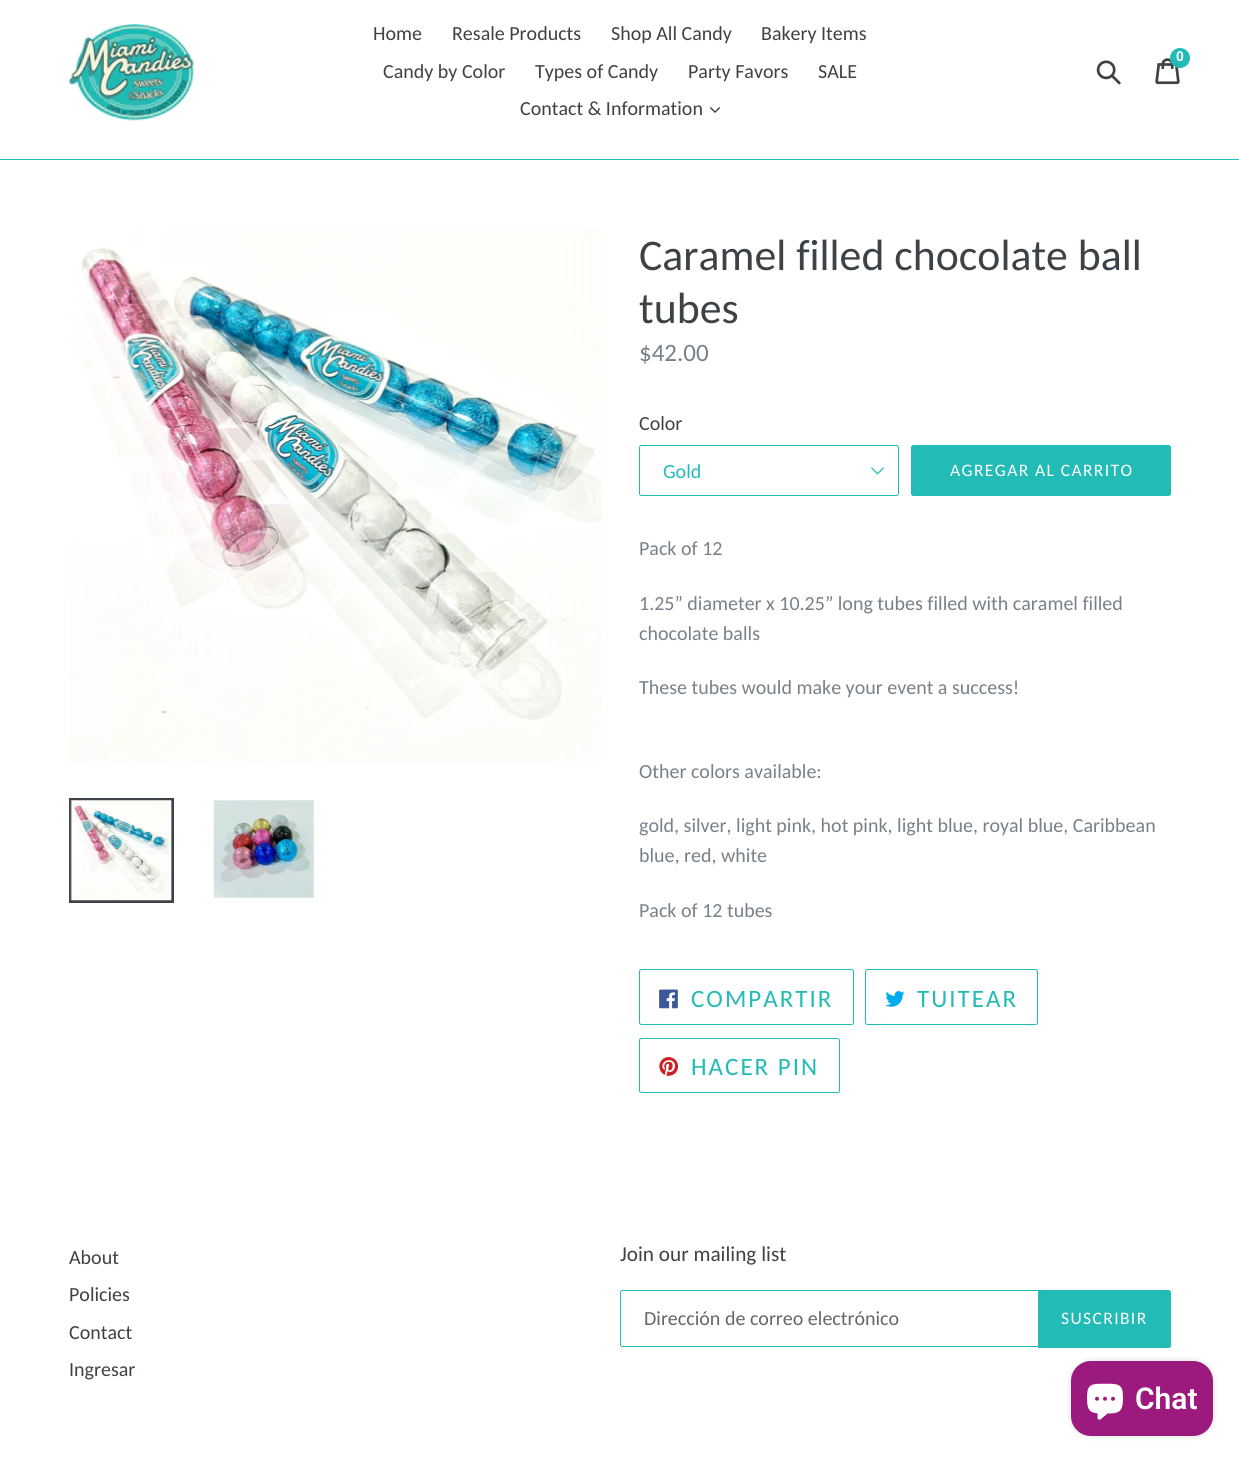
#include <cairo.h>
#include <math.h>
#include <stddef.h>

static cairo_t *ctx;

static void use_color(int r, int g, int b) {
    cairo_set_source_rgb(ctx, r / 255.0, g / 255.0, b / 255.0);
}

static void spaced_text(double x, double y, const char *s, double letter, double word) {
    cairo_move_to(ctx, x, y);
    while (*s) {
        char ch[5] = {0};
        int n = 0;
        do ch[n++] = *s++; while ((*s & 0xC0) == 0x80);
        cairo_show_text(ctx, ch);
        cairo_rel_move_to(ctx, letter + word * (*ch == ' '), 0);
    }
}

static void round_rect(double x, double y, double w, double h, double r) {
    cairo_new_sub_path(ctx);
    cairo_arc(ctx, x + w - r, y + h - r, r, 0, M_PI / 2);
    cairo_arc(ctx, x + r, y + h - r, r, M_PI / 2, M_PI);
    cairo_arc(ctx, x + r, y + r, r, M_PI, 1.5 * M_PI);
    cairo_arc(ctx, x + w - r, y + r, r, 1.5 * M_PI, 2 * M_PI);
    cairo_close_path(ctx);
}

static void shadow(double x, double y, double w, double h, double r, double blur, double alpha) {
    cairo_push_group_with_content(ctx, CAIRO_CONTENT_ALPHA);
    cairo_set_operator(ctx, CAIRO_OPERATOR_SOURCE);
    for (int i = 15; i >= -15 && fmin(w, h) + blur * i / 3 > 0; i -= 2) {
        double e = blur * i / 6;
        cairo_set_source_rgba(ctx, 0, 0, 0, alpha * erfc((i - 1) / 8.5) / 2);
        round_rect(x - e, y - e, w + 2 * e, h + 2 * e, fmax(0, fmin(r + e + blur * .6, fmin(w, h) / 2 + e)));
        cairo_fill(ctx);
    }
    cairo_pattern_t *soft = cairo_pop_group(ctx);
    cairo_mask(ctx, soft);
    cairo_pattern_destroy(soft);
}

static void picture(const char *path, double x, double y, double w, double h) {
    cairo_surface_t *image = cairo_image_surface_create_from_png(path);
    cairo_save(ctx);
    cairo_set_source_surface(ctx, image, x, y);
    cairo_rectangle(ctx, x, y, w, h);
    cairo_fill(ctx);
    cairo_restore(ctx);
    cairo_surface_destroy(image);
}

int main(void) {
    cairo_surface_t *surface = cairo_image_surface_create(CAIRO_FORMAT_RGB24, 1239, 1462);
    ctx = cairo_create(surface);
    cairo_font_options_t *options = cairo_font_options_create();
    cairo_font_options_set_hint_metrics(options, CAIRO_HINT_METRICS_OFF);
    cairo_font_options_set_hint_style(options, CAIRO_HINT_STYLE_NONE);
    cairo_set_font_options(ctx, options);
    cairo_set_miter_limit(ctx, 4);
    use_color(255, 255, 255);
    cairo_paint(ctx);
    use_color(34, 187, 182);
    cairo_rectangle(ctx, 0, 159, 1239, 1);
    cairo_fill(ctx);
    picture("img1.png", 68, 24, 126, 97);
    cairo_select_font_face(ctx, "Carlito", CAIRO_FONT_SLANT_NORMAL, CAIRO_FONT_WEIGHT_NORMAL);
    cairo_set_font_size(ctx, 20);
    use_color(61, 66, 70);
    cairo_move_to(ctx, 373, 40);
    cairo_show_text(ctx, "Home");
    cairo_move_to(ctx, 452, 40);
    cairo_show_text(ctx, "Resale Products");
    cairo_move_to(ctx, 611, 40);
    cairo_show_text(ctx, "Shop All Candy");
    cairo_move_to(ctx, 761, 40);
    cairo_show_text(ctx, "Bakery Items");
    cairo_move_to(ctx, 383, 78);
    cairo_show_text(ctx, "Candy by Color");
    cairo_move_to(ctx, 535, 78);
    cairo_show_text(ctx, "Types of Candy");
    cairo_move_to(ctx, 688, 78);
    cairo_show_text(ctx, "Party Favors");
    cairo_move_to(ctx, 818, 78);
    cairo_show_text(ctx, "SALE");
    cairo_move_to(ctx, 520, 115);
    cairo_show_text(ctx, "Contact & Information");
    picture("img2.png", 710, 107, 10, 6);
    picture("img3.png", 1155, 58, 25, 27);
    use_color(34, 187, 182);
    cairo_arc(ctx, 1180, 58, 10, 0, 2 * M_PI);
    cairo_fill(ctx);
    cairo_select_font_face(ctx, "Liberation Sans", CAIRO_FONT_SLANT_NORMAL, CAIRO_FONT_WEIGHT_BOLD);
    cairo_set_font_size(ctx, 14);
    use_color(255, 255, 255);
    cairo_move_to(ctx, 1176, 61);
    cairo_show_text(ctx, "0");
    picture("img4.png", 1096, 60, 25, 25);
    picture("img5.png", 69, 229, 533, 534);
    cairo_rectangle(ctx, 70.5, 799.5, 102, 102);
    use_color(61, 66, 70);
    cairo_set_line_width(ctx, 3);
    cairo_stroke(ctx);
    picture("img6.png", 70, 800, 102, 101);
    picture("img7.png", 213, 800, 101, 98);
    cairo_select_font_face(ctx, "Carlito", CAIRO_FONT_SLANT_NORMAL, CAIRO_FONT_WEIGHT_NORMAL);
    cairo_set_font_size(ctx, 43.75);
    cairo_move_to(ctx, 639, 270);
    cairo_show_text(ctx, "Caramel filled chocolate ball");
    cairo_move_to(ctx, 639, 323);
    cairo_show_text(ctx, "tubes");
    cairo_set_font_size(ctx, 25);
    use_color(120, 129, 136);
    cairo_move_to(ctx, 639, 361);
    cairo_show_text(ctx, "$42.00");
    cairo_set_font_size(ctx, 20);
    use_color(61, 66, 70);
    cairo_move_to(ctx, 639, 430);
    cairo_show_text(ctx, "Color");
    picture("img8.png", 871, 467, 13, 8);
    round_rect(639.5, 445.5, 259, 50, 2);
    use_color(34, 187, 182);
    cairo_set_line_width(ctx, 1);
    cairo_stroke(ctx);
    cairo_move_to(ctx, 663, 478);
    cairo_show_text(ctx, "Gold");
    round_rect(911, 445, 260, 51, 2.5);
    cairo_fill(ctx);
    cairo_set_font_size(ctx, 17.5);
    use_color(255, 255, 255);
    spaced_text(950, 476, "AGREGAR AL CARRITO", 1.4, 0);
    cairo_set_font_size(ctx, 20);
    use_color(120, 129, 136);
    cairo_move_to(ctx, 639, 555);
    cairo_show_text(ctx, "Pack of 12");
    cairo_move_to(ctx, 639, 610);
    cairo_show_text(ctx, "1.25” diameter x 10.25” long tubes filled with caramel filled");
    cairo_move_to(ctx, 639, 640);
    cairo_show_text(ctx, "chocolate balls");
    cairo_move_to(ctx, 639, 694);
    cairo_show_text(ctx, "These tubes would make your event a success!");
    cairo_move_to(ctx, 639, 778);
    cairo_show_text(ctx, "Other colors available:");
    cairo_move_to(ctx, 639, 832);
    cairo_show_text(ctx, "gold, silver, light pink, hot pink, light blue, royal blue, Caribbean");
    cairo_move_to(ctx, 639, 862);
    cairo_show_text(ctx, "blue, red, white");
    cairo_move_to(ctx, 639, 917);
    cairo_show_text(ctx, "Pack of 12 tubes");
    round_rect(639.5, 969.5, 214, 55, 2);
    use_color(34, 187, 182);
    cairo_stroke(ctx);
    picture("img9.png", 659, 989, 19, 20);
    cairo_set_font_size(ctx, 25);
    spaced_text(691, 1007, "COMPARTIR", 2, 0);
    round_rect(865.5, 969.5, 172, 55, 2);
    cairo_stroke(ctx);
    picture("img10.png", 885, 991, 20, 16);
    spaced_text(917, 1007, "TUITEAR", 2, 0);
    round_rect(639.5, 1038.5, 200, 54, 2);
    cairo_stroke(ctx);
    picture("img11.png", 659, 1057, 20, 19);
    spaced_text(691, 1075, "HACER PIN", 2, 0);
    cairo_set_font_size(ctx, 20);
    use_color(61, 66, 70);
    cairo_move_to(ctx, 69, 1264);
    cairo_show_text(ctx, "About");
    cairo_move_to(ctx, 69, 1301);
    cairo_show_text(ctx, "Policies");
    cairo_move_to(ctx, 69, 1339);
    cairo_show_text(ctx, "Contact");
    cairo_move_to(ctx, 69, 1376);
    cairo_show_text(ctx, "Ingresar");
    cairo_set_font_size(ctx, 21.25);
    cairo_move_to(ctx, 620, 1261);
    cairo_show_text(ctx, "Join our mailing list");
    use_color(34, 187, 182);
    cairo_rectangle(ctx, 621, 1290, 417, 1);
    cairo_fill(ctx);
    cairo_rectangle(ctx, 621, 1346, 417, 1);
    cairo_fill(ctx);
    cairo_rectangle(ctx, 620, 1291, 1, 55);
    cairo_fill(ctx);
    cairo_set_font_size(ctx, 20);
    use_color(102, 102, 102);
    cairo_move_to(ctx, 644, 1325);
    cairo_show_text(ctx, "Dirección de correo electrónico");
    use_color(34, 187, 182);
    cairo_new_path(ctx);
    cairo_move_to(ctx, 1038, 1290);
    cairo_line_to(ctx, 1168.5, 1290);
    cairo_curve_to(ctx, 1170, 1290, 1171, 1291, 1171, 1292.5);
    cairo_line_to(ctx, 1171, 1345.5);
    cairo_curve_to(ctx, 1171, 1347, 1170, 1348, 1168.5, 1348);
    cairo_line_to(ctx, 1038, 1348);
    cairo_close_path(ctx);
    cairo_fill(ctx);
    cairo_set_font_size(ctx, 17.5);
    use_color(255, 255, 255);
    spaced_text(1061, 1324, "SUSCRIBIR", 1.4, 0);
    use_color(0, 0, 0);
    shadow(1071, 1361, 142, 75, 20, 3, 0.15);
    use_color(156, 26, 125);
    round_rect(1071, 1361, 142, 75, 20);
    cairo_fill(ctx);
    picture("img12.png", 1087, 1383, 36, 37);
    cairo_select_font_face(ctx, "Roboto SemiBold", CAIRO_FONT_SLANT_NORMAL, CAIRO_FONT_WEIGHT_NORMAL);
    cairo_set_font_size(ctx, 30);
    use_color(255, 255, 255);
    cairo_move_to(ctx, 1135, 1409);
    cairo_show_text(ctx, "Chat");
    cairo_surface_write_to_png(surface, "result.png");
    cairo_font_options_destroy(options);
    cairo_destroy(ctx);
    cairo_surface_destroy(surface);
    return 0;
}
